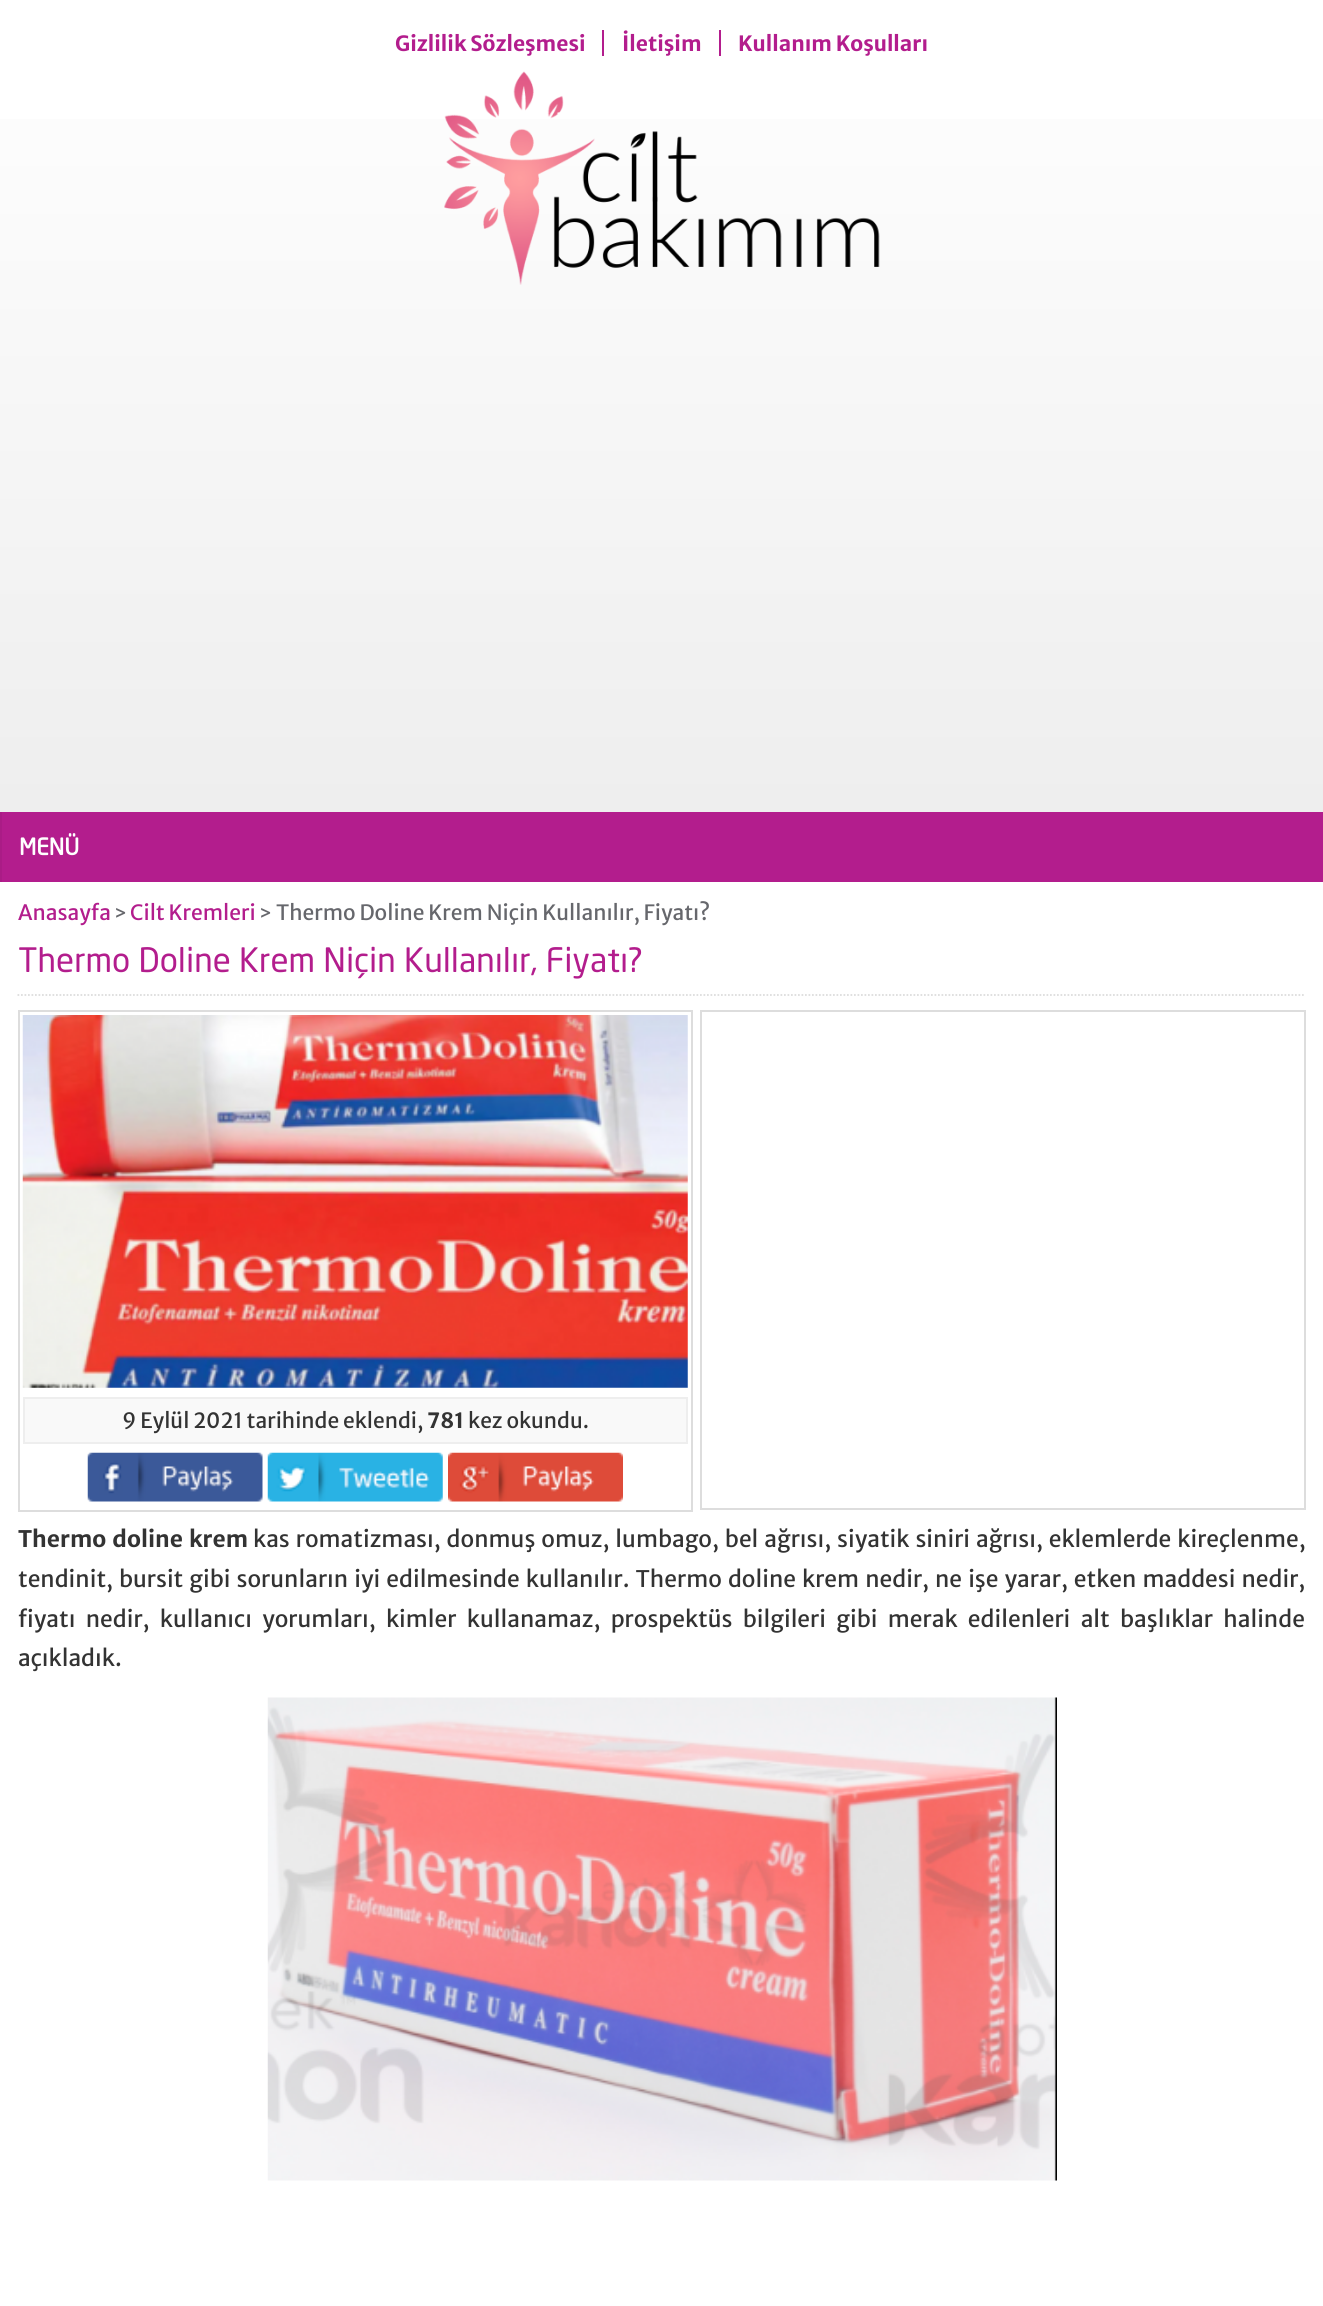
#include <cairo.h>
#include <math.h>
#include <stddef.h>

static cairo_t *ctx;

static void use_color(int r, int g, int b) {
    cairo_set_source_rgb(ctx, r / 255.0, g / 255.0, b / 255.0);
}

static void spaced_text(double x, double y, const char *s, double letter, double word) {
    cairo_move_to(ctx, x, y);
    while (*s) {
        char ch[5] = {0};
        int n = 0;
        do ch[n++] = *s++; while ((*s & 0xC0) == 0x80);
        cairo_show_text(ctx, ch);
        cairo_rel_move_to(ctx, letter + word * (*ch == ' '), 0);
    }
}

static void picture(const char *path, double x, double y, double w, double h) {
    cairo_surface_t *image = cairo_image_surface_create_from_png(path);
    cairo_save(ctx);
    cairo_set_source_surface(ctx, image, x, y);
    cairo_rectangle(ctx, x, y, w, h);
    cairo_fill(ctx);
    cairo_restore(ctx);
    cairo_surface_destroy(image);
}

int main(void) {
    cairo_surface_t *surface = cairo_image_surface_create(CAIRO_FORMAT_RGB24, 1323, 2306);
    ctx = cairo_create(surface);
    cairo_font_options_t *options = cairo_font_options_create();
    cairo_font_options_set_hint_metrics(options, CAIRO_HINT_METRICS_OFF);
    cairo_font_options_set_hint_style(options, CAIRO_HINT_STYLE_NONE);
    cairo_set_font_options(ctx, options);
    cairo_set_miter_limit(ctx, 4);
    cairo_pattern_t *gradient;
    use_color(255, 255, 255);
    cairo_paint(ctx);
    gradient = cairo_pattern_create_linear(662, 812, 662, 0);
    cairo_pattern_add_color_stop_rgba(gradient, 0, 0.933, 0.933, 0.933, 1);
    cairo_pattern_add_color_stop_rgba(gradient, 1, 1, 1, 1, 1);
    cairo_set_source(ctx, gradient);
    cairo_pattern_destroy(gradient);
    cairo_rectangle(ctx, 0, 119, 1323, 693);
    cairo_fill(ctx);
    cairo_select_font_face(ctx, "Merriweather Sans", CAIRO_FONT_SLANT_NORMAL, CAIRO_FONT_WEIGHT_BOLD);
    cairo_set_font_size(ctx, 21);
    use_color(179, 29, 141);
    cairo_move_to(ctx, 395, 51);
    cairo_show_text(ctx, "Gizlilik Sözleşmesi");
    cairo_move_to(ctx, 622, 51);
    cairo_show_text(ctx, "İletişim");
    cairo_rectangle(ctx, 602, 30, 2, 26);
    cairo_fill(ctx);
    cairo_rectangle(ctx, 719, 30, 2, 26);
    cairo_fill(ctx);
    cairo_move_to(ctx, 738, 51);
    cairo_show_text(ctx, "Kullanım Koşulları");
    picture("img1.png", 444, 71, 436, 214);
    cairo_rectangle(ctx, 2, 812, 1321, 70);
    cairo_fill(ctx);
    use_color(170, 28, 134);
    cairo_rectangle(ctx, 0, 812, 2, 70);
    cairo_fill(ctx);
    cairo_select_font_face(ctx, "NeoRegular", CAIRO_FONT_SLANT_NORMAL, CAIRO_FONT_WEIGHT_BOLD);
    cairo_set_font_size(ctx, 22.75);
    use_color(255, 255, 255);
    cairo_move_to(ctx, 19, 855);
    cairo_show_text(ctx, "MENÜ");
    cairo_select_font_face(ctx, "Merriweather Sans", CAIRO_FONT_SLANT_NORMAL, CAIRO_FONT_WEIGHT_NORMAL);
    cairo_set_font_size(ctx, 21);
    use_color(179, 29, 141);
    cairo_move_to(ctx, 18, 920);
    cairo_show_text(ctx, "Anasayfa");
    cairo_set_font_size(ctx, 19);
    use_color(102, 103, 108);
    cairo_move_to(ctx, 114, 920);
    cairo_show_text(ctx, ">");
    cairo_set_font_size(ctx, 21);
    use_color(179, 29, 141);
    cairo_move_to(ctx, 130, 920);
    cairo_show_text(ctx, "Cilt Kremleri");
    cairo_set_font_size(ctx, 19);
    use_color(102, 103, 108);
    cairo_move_to(ctx, 259, 920);
    cairo_show_text(ctx, ">");
    cairo_set_font_size(ctx, 21);
    cairo_move_to(ctx, 276, 920);
    cairo_show_text(ctx, "Thermo Doline Krem Niçin Kullanılır, Fiyatı?");
    cairo_new_path(ctx);
    cairo_move_to(ctx, 17.5, 995);
    cairo_line_to(ctx, 1305.5, 995);
    use_color(221, 221, 221);
    cairo_set_line_width(ctx, 1.8);
    cairo_set_dash(ctx, (double[]){1.75, 1.75}, 2, 0);
    cairo_stroke(ctx);
    cairo_select_font_face(ctx, "NeoRegular", CAIRO_FONT_SLANT_NORMAL, CAIRO_FONT_WEIGHT_NORMAL);
    cairo_set_font_size(ctx, 33.25);
    use_color(179, 29, 141);
    cairo_move_to(ctx, 18, 972);
    cairo_show_text(ctx, "Thermo Doline Krem Niçin Kullanılır, Fiyatı?");
    cairo_rectangle(ctx, 19, 1011, 673, 500);
    use_color(221, 221, 221);
    cairo_set_line_width(ctx, 2);
    cairo_set_dash(ctx, NULL, 0, 0);
    cairo_stroke(ctx);
    picture("img2.png", 22, 1015, 666, 373);
    use_color(249, 249, 249);
    cairo_rectangle(ctx, 24, 1398, 663, 45);
    cairo_fill_preserve(ctx);
    use_color(238, 238, 238);
    cairo_stroke(ctx);
    cairo_select_font_face(ctx, "Merriweather Sans", CAIRO_FONT_SLANT_NORMAL, CAIRO_FONT_WEIGHT_NORMAL);
    cairo_set_font_size(ctx, 21);
    use_color(51, 51, 51);
    cairo_move_to(ctx, 122, 1428);
    cairo_show_text(ctx, "9 Eylül 2021 tarihinde eklendi,");
    cairo_select_font_face(ctx, "Merriweather Sans", CAIRO_FONT_SLANT_NORMAL, CAIRO_FONT_WEIGHT_BOLD);
    cairo_move_to(ctx, 427, 1428);
    cairo_show_text(ctx, "781");
    cairo_select_font_face(ctx, "Merriweather Sans", CAIRO_FONT_SLANT_NORMAL, CAIRO_FONT_WEIGHT_NORMAL);
    cairo_move_to(ctx, 468, 1428);
    cairo_show_text(ctx, "kez okundu.");
    picture("img3.png", 87, 1452, 176, 50);
    picture("img4.png", 267, 1452, 176, 50);
    picture("img5.png", 448, 1452, 175, 50);
    cairo_rectangle(ctx, 701, 1011, 604, 498);
    use_color(221, 221, 221);
    cairo_stroke(ctx);
    cairo_select_font_face(ctx, "Merriweather Sans", CAIRO_FONT_SLANT_NORMAL, CAIRO_FONT_WEIGHT_BOLD);
    cairo_set_font_size(ctx, 22.75);
    use_color(51, 51, 51);
    spaced_text(18, 1547, "Thermo doline krem", 0, 1.9);
    cairo_select_font_face(ctx, "Merriweather Sans", CAIRO_FONT_SLANT_NORMAL, CAIRO_FONT_WEIGHT_NORMAL);
    spaced_text(253, 1547, "kas romatizması, donmuş omuz, lumbago, bel ağrısı, siyatik siniri ağrısı, eklemlerde kireçlenme,", 0, 1.9);
    spaced_text(18, 1587, "tendinit, bursit gibi sorunların iyi edilmesinde kullanılır. Thermo doline krem nedir, ne işe yarar, etken maddesi nedir,", 0, 2);
    spaced_text(18, 1627, "fiyatı nedir, kullanıcı yorumları, kimler kullanamaz, prospektüs bilgileri gibi merak edilenleri alt başlıklar halinde", 0, 6.25);
    cairo_move_to(ctx, 18, 1666);
    cairo_show_text(ctx, "açıkladık.");
    picture("img6.png", 267, 1697, 790, 484);
    cairo_surface_write_to_png(surface, "result.png");
    cairo_font_options_destroy(options);
    cairo_destroy(ctx);
    cairo_surface_destroy(surface);
    return 0;
}
